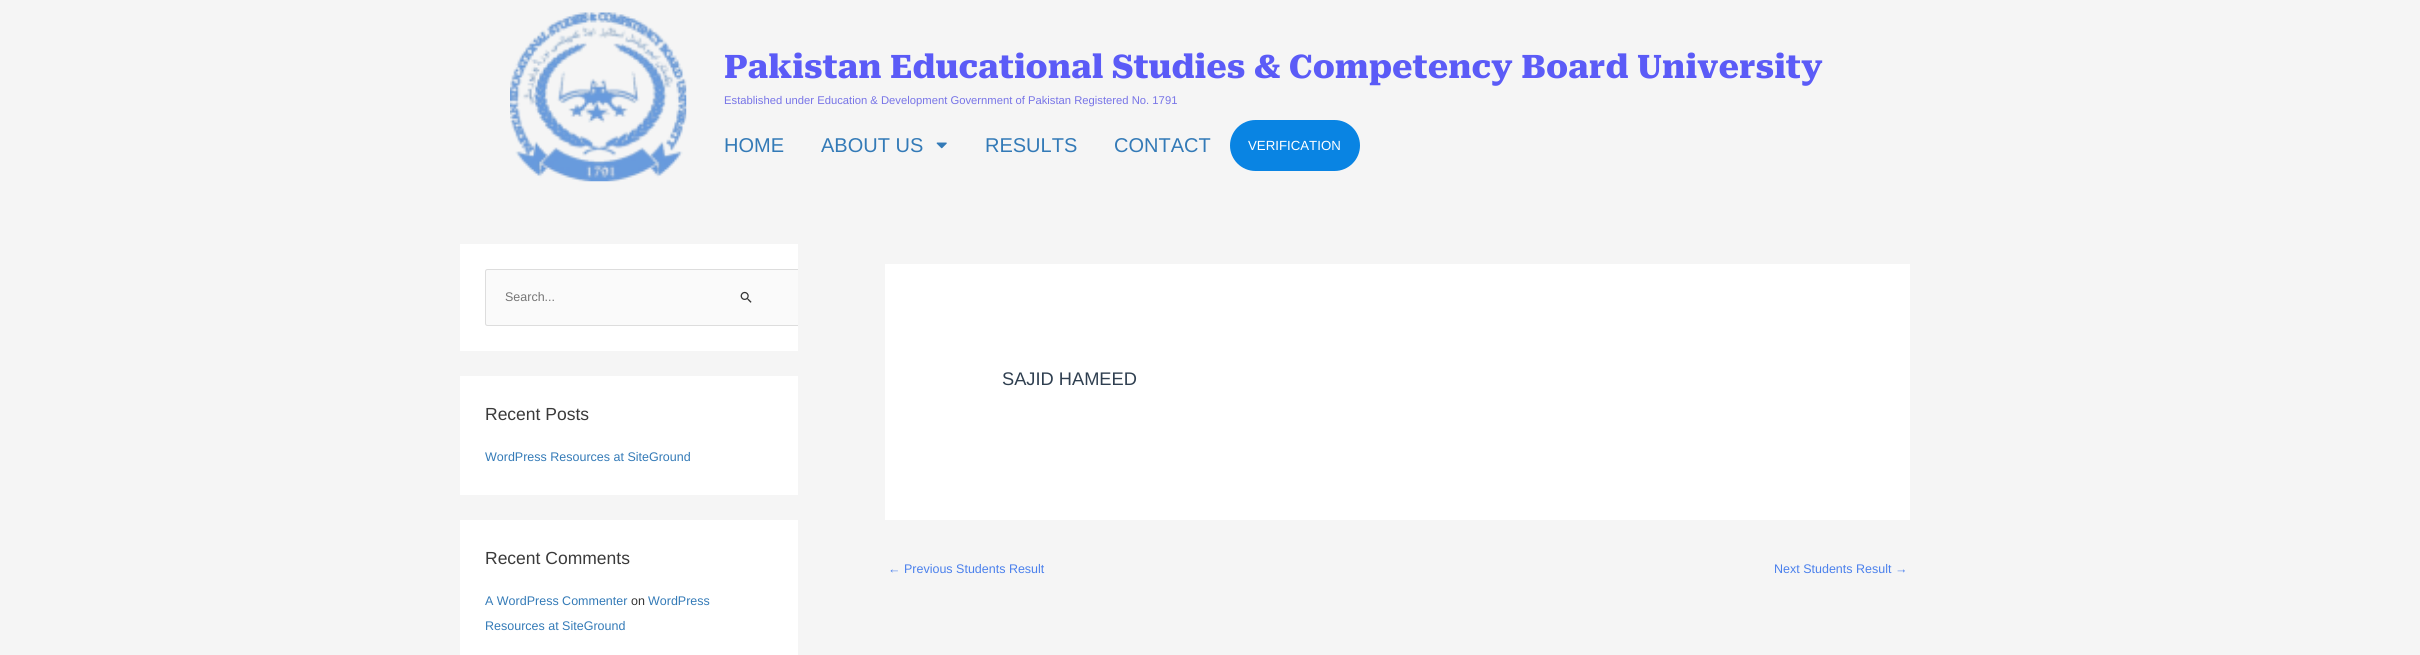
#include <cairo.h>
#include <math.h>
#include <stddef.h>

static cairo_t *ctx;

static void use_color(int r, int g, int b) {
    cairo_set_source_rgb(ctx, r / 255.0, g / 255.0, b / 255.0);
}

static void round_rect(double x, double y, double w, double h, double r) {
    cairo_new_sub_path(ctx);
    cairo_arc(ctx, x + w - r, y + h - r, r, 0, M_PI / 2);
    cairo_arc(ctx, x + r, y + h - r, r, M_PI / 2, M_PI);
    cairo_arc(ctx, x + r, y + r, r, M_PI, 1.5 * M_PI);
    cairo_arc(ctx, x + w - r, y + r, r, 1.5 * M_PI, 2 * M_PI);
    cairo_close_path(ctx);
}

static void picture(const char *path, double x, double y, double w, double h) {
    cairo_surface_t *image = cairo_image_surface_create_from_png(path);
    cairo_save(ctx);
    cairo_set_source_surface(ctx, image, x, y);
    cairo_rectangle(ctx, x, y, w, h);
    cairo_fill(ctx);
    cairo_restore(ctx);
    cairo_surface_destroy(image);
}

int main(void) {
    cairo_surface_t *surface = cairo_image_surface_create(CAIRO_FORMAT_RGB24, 2420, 655);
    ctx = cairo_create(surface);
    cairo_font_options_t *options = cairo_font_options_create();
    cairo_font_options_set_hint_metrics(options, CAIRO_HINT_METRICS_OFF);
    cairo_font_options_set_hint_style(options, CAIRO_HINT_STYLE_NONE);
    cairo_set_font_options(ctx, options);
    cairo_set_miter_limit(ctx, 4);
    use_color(245, 245, 245);
    cairo_paint(ctx);
    picture("img1.png", 510, 12, 177, 170);
    cairo_select_font_face(ctx, "Roboto Serif ExtraBold", CAIRO_FONT_SLANT_NORMAL, CAIRO_FONT_WEIGHT_NORMAL);
    cairo_set_font_size(ctx, 32.5);
    use_color(91, 91, 247);
    cairo_move_to(ctx, 724, 78);
    cairo_show_text(ctx, "Pakistan Educational Studies & Competency Board University");
    cairo_select_font_face(ctx, "Liberation Sans", CAIRO_FONT_SLANT_NORMAL, CAIRO_FONT_WEIGHT_NORMAL);
    cairo_set_font_size(ctx, 11.25);
    use_color(119, 116, 231);
    cairo_move_to(ctx, 724, 104);
    cairo_show_text(ctx, "Established under Education & Development Government of Pakistan Registered No. 1791");
    cairo_set_font_size(ctx, 20);
    use_color(51, 122, 183);
    cairo_move_to(ctx, 724, 152);
    cairo_show_text(ctx, "HOME");
    cairo_move_to(ctx, 821, 152);
    cairo_show_text(ctx, "ABOUT US");
    picture("img2.png", 936, 142, 11, 7);
    cairo_move_to(ctx, 985, 152);
    cairo_show_text(ctx, "RESULTS");
    cairo_move_to(ctx, 1114, 152);
    cairo_show_text(ctx, "CONTACT");
    use_color(9, 132, 227);
    round_rect(1230, 120, 130, 51, 25.5);
    cairo_fill(ctx);
    cairo_set_font_size(ctx, 13.25);
    use_color(255, 255, 255);
    cairo_move_to(ctx, 1248, 150);
    cairo_show_text(ctx, "VERIFICATION");
    cairo_rectangle(ctx, 460, 244, 338, 107);
    cairo_fill(ctx);
    use_color(250, 250, 250);
    cairo_new_path(ctx);
    cairo_move_to(ctx, 487.5, 269);
    cairo_line_to(ctx, 798, 269);
    cairo_line_to(ctx, 798, 326);
    cairo_line_to(ctx, 487.5, 326);
    cairo_curve_to(ctx, 486, 326, 485, 325, 485, 323.5);
    cairo_line_to(ctx, 485, 271.5);
    cairo_curve_to(ctx, 485, 270, 486, 269, 487.5, 269);
    cairo_close_path(ctx);
    cairo_fill(ctx);
    cairo_save(ctx);
    cairo_rectangle(ctx, 460, 244, 338, 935);
    cairo_clip(ctx);
    round_rect(485.5, 269.5, 364, 56, 2);
    use_color(221, 221, 221);
    cairo_set_line_width(ctx, 1);
    cairo_stroke(ctx);
    cairo_restore(ctx);
    cairo_set_font_size(ctx, 12.5);
    use_color(117, 117, 117);
    cairo_move_to(ctx, 505, 301);
    cairo_show_text(ctx, "Search...");
    picture("img3.png", 740, 291, 12, 12);
    use_color(255, 255, 255);
    cairo_rectangle(ctx, 460, 376, 338, 119);
    cairo_fill(ctx);
    cairo_set_font_size(ctx, 17.5);
    use_color(58, 58, 58);
    cairo_move_to(ctx, 485, 420);
    cairo_show_text(ctx, "Recent Posts");
    cairo_set_font_size(ctx, 12.5);
    use_color(51, 122, 183);
    cairo_move_to(ctx, 485, 461);
    cairo_show_text(ctx, "WordPress Resources at SiteGround");
    use_color(255, 255, 255);
    cairo_rectangle(ctx, 460, 520, 338, 135);
    cairo_fill(ctx);
    cairo_set_font_size(ctx, 17.5);
    use_color(58, 58, 58);
    cairo_move_to(ctx, 485, 564);
    cairo_show_text(ctx, "Recent Comments");
    cairo_set_font_size(ctx, 12.5);
    use_color(51, 122, 183);
    cairo_move_to(ctx, 485, 605);
    cairo_show_text(ctx, "A WordPress Commenter");
    use_color(51, 51, 51);
    cairo_move_to(ctx, 631, 605);
    cairo_show_text(ctx, "on");
    use_color(51, 122, 183);
    cairo_move_to(ctx, 648, 605);
    cairo_show_text(ctx, "WordPress");
    cairo_move_to(ctx, 485, 630);
    cairo_show_text(ctx, "Resources at SiteGround");
    use_color(255, 255, 255);
    cairo_rectangle(ctx, 885, 264, 1025, 256);
    cairo_fill(ctx);
    cairo_set_font_size(ctx, 18.25);
    use_color(47, 63, 80);
    cairo_move_to(ctx, 1002, 385);
    cairo_show_text(ctx, "SAJID HAMEED");
    cairo_set_font_size(ctx, 12.5);
    use_color(74, 128, 236);
    cairo_move_to(ctx, 888, 573);
    cairo_show_text(ctx, "← Previous Students Result");
    cairo_move_to(ctx, 1774, 573);
    cairo_show_text(ctx, "Next Students Result →");
    cairo_surface_write_to_png(surface, "result.png");
    cairo_font_options_destroy(options);
    cairo_destroy(ctx);
    cairo_surface_destroy(surface);
    return 0;
}
